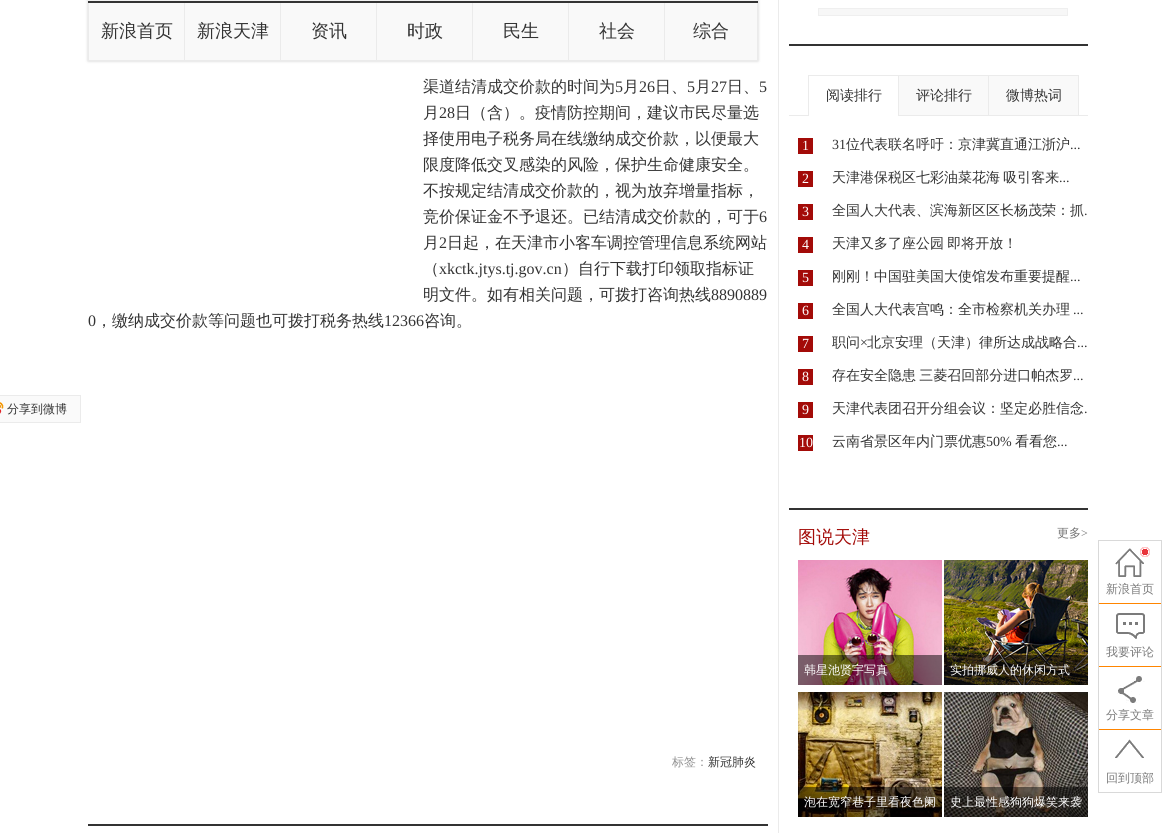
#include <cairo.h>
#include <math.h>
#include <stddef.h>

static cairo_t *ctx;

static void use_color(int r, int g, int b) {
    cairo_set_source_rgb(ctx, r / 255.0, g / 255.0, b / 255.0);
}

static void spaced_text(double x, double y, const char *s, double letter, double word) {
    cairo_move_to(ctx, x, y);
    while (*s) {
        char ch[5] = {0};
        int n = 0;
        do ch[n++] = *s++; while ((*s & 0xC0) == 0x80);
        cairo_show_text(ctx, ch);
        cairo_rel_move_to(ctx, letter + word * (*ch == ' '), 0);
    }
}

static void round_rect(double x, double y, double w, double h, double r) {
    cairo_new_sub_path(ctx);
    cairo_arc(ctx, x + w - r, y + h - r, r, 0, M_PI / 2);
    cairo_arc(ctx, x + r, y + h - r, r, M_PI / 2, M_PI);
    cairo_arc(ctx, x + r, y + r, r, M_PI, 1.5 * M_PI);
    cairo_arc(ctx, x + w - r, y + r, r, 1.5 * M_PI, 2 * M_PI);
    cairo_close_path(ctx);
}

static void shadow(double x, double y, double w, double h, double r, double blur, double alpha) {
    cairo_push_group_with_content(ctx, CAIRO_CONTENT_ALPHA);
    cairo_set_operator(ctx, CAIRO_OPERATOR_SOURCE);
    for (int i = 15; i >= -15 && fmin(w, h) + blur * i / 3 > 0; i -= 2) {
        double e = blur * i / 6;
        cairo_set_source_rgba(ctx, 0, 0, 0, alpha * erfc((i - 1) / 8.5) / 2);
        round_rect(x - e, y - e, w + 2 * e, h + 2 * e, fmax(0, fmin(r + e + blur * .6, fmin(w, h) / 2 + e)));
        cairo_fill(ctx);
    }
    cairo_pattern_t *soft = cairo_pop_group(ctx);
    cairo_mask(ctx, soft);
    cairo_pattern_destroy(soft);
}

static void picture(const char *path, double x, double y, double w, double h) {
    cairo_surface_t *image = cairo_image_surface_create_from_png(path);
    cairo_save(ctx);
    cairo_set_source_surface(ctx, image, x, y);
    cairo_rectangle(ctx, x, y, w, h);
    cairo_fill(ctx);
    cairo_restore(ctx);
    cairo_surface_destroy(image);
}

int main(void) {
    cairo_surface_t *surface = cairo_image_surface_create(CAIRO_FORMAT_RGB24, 1176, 833);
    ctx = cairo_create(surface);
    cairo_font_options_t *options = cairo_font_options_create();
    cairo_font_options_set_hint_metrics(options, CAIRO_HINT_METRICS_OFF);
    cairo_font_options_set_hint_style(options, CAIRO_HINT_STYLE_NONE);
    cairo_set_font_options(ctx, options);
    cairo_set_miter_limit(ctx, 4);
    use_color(255, 255, 255);
    cairo_paint(ctx);
    use_color(250, 250, 250);
    cairo_rectangle(ctx, 0, 396, 80, 26);
    cairo_fill(ctx);
    picture("img1.png", 0, 402, 4, 12);
    cairo_rectangle(ctx, -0.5, 395.5, 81, 27);
    use_color(235, 235, 235);
    cairo_set_line_width(ctx, 1);
    cairo_stroke(ctx);
    cairo_select_font_face(ctx, "WenQuanYi Zen Hei Medium", CAIRO_FONT_SLANT_NORMAL, CAIRO_FONT_WEIGHT_NORMAL);
    cairo_set_font_size(ctx, 12);
    use_color(51, 51, 51);
    cairo_move_to(ctx, 7, 413);
    cairo_show_text(ctx, "分享到微博");
    use_color(235, 235, 235);
    cairo_rectangle(ctx, 778, 0, 1, 833);
    cairo_fill(ctx);
    use_color(0, 0, 0);
    shadow(88, 0, 670, 61, 0, 1.5, 0.2);
    use_color(249, 249, 249);
    cairo_rectangle(ctx, 89, 3, 668, 57);
    cairo_fill(ctx);
    use_color(241, 241, 241);
    cairo_rectangle(ctx, 88, 0, 670, 1);
    cairo_fill(ctx);
    use_color(51, 51, 51);
    cairo_rectangle(ctx, 88, 1, 670, 2);
    cairo_fill(ctx);
    use_color(235, 235, 235);
    cairo_rectangle(ctx, 88, 60, 576, 1);
    cairo_fill(ctx);
    cairo_rectangle(ctx, 88, 3, 1, 58);
    cairo_fill(ctx);
    cairo_set_font_size(ctx, 18);
    use_color(51, 51, 51);
    cairo_move_to(ctx, 101, 37);
    cairo_show_text(ctx, "新浪首页");
    use_color(235, 235, 235);
    cairo_rectangle(ctx, 184, 3, 1, 58);
    cairo_fill(ctx);
    use_color(51, 51, 51);
    cairo_move_to(ctx, 197, 37);
    cairo_show_text(ctx, "新浪天津");
    use_color(235, 235, 235);
    cairo_rectangle(ctx, 280, 3, 1, 58);
    cairo_fill(ctx);
    use_color(51, 51, 51);
    cairo_move_to(ctx, 311, 37);
    cairo_show_text(ctx, "资讯");
    use_color(235, 235, 235);
    cairo_rectangle(ctx, 376, 3, 1, 58);
    cairo_fill(ctx);
    use_color(51, 51, 51);
    cairo_move_to(ctx, 407, 37);
    cairo_show_text(ctx, "时政");
    use_color(235, 235, 235);
    cairo_rectangle(ctx, 472, 3, 1, 58);
    cairo_fill(ctx);
    use_color(51, 51, 51);
    cairo_move_to(ctx, 503, 37);
    cairo_show_text(ctx, "民生");
    use_color(235, 235, 235);
    cairo_rectangle(ctx, 568, 3, 1, 58);
    cairo_fill(ctx);
    use_color(51, 51, 51);
    cairo_move_to(ctx, 599, 37);
    cairo_show_text(ctx, "社会");
    use_color(235, 235, 235);
    cairo_rectangle(ctx, 757, 3, 1, 58);
    cairo_fill(ctx);
    cairo_rectangle(ctx, 664, 60, 94, 1);
    cairo_fill(ctx);
    cairo_rectangle(ctx, 664, 3, 1, 58);
    cairo_fill(ctx);
    use_color(51, 51, 51);
    cairo_move_to(ctx, 693, 37);
    cairo_show_text(ctx, "综合");
    cairo_set_font_size(ctx, 16);
    cairo_move_to(ctx, 423, 92);
    cairo_show_text(ctx, "渠道结清成交价款的时间为");
    cairo_select_font_face(ctx, "Liberation Serif", CAIRO_FONT_SLANT_NORMAL, CAIRO_FONT_WEIGHT_NORMAL);
    cairo_move_to(ctx, 615, 92);
    cairo_show_text(ctx, "5");
    cairo_select_font_face(ctx, "WenQuanYi Zen Hei Medium", CAIRO_FONT_SLANT_NORMAL, CAIRO_FONT_WEIGHT_NORMAL);
    cairo_move_to(ctx, 623, 92);
    cairo_show_text(ctx, "月");
    cairo_select_font_face(ctx, "Liberation Serif", CAIRO_FONT_SLANT_NORMAL, CAIRO_FONT_WEIGHT_NORMAL);
    cairo_move_to(ctx, 639, 92);
    cairo_show_text(ctx, "26");
    cairo_select_font_face(ctx, "WenQuanYi Zen Hei Medium", CAIRO_FONT_SLANT_NORMAL, CAIRO_FONT_WEIGHT_NORMAL);
    cairo_move_to(ctx, 655, 92);
    cairo_show_text(ctx, "日、");
    cairo_select_font_face(ctx, "Liberation Serif", CAIRO_FONT_SLANT_NORMAL, CAIRO_FONT_WEIGHT_NORMAL);
    cairo_move_to(ctx, 687, 92);
    cairo_show_text(ctx, "5");
    cairo_select_font_face(ctx, "WenQuanYi Zen Hei Medium", CAIRO_FONT_SLANT_NORMAL, CAIRO_FONT_WEIGHT_NORMAL);
    cairo_move_to(ctx, 695, 92);
    cairo_show_text(ctx, "月");
    cairo_select_font_face(ctx, "Liberation Serif", CAIRO_FONT_SLANT_NORMAL, CAIRO_FONT_WEIGHT_NORMAL);
    cairo_move_to(ctx, 711, 92);
    cairo_show_text(ctx, "27");
    cairo_select_font_face(ctx, "WenQuanYi Zen Hei Medium", CAIRO_FONT_SLANT_NORMAL, CAIRO_FONT_WEIGHT_NORMAL);
    cairo_move_to(ctx, 727, 92);
    cairo_show_text(ctx, "日、");
    cairo_select_font_face(ctx, "Liberation Serif", CAIRO_FONT_SLANT_NORMAL, CAIRO_FONT_WEIGHT_NORMAL);
    cairo_move_to(ctx, 759, 92);
    cairo_show_text(ctx, "5");
    cairo_select_font_face(ctx, "WenQuanYi Zen Hei Medium", CAIRO_FONT_SLANT_NORMAL, CAIRO_FONT_WEIGHT_NORMAL);
    cairo_move_to(ctx, 423, 118);
    cairo_show_text(ctx, "月");
    cairo_select_font_face(ctx, "Liberation Serif", CAIRO_FONT_SLANT_NORMAL, CAIRO_FONT_WEIGHT_NORMAL);
    cairo_move_to(ctx, 439, 118);
    cairo_show_text(ctx, "28");
    cairo_select_font_face(ctx, "WenQuanYi Zen Hei Medium", CAIRO_FONT_SLANT_NORMAL, CAIRO_FONT_WEIGHT_NORMAL);
    cairo_move_to(ctx, 455, 118);
    cairo_show_text(ctx, "日（含）。疫情防控期间，建议市民尽量选");
    cairo_move_to(ctx, 423, 144);
    cairo_show_text(ctx, "择使用电子税务局在线缴纳成交价款，以便最大");
    cairo_move_to(ctx, 423, 170);
    cairo_show_text(ctx, "限度降低交叉感染的风险，保护生命健康安全。");
    cairo_move_to(ctx, 423, 196);
    cairo_show_text(ctx, "不按规定结清成交价款的，视为放弃增量指标，");
    cairo_move_to(ctx, 423, 222);
    cairo_show_text(ctx, "竞价保证金不予退还。已结清成交价款的，可于");
    cairo_select_font_face(ctx, "Liberation Serif", CAIRO_FONT_SLANT_NORMAL, CAIRO_FONT_WEIGHT_NORMAL);
    cairo_move_to(ctx, 759, 222);
    cairo_show_text(ctx, "6");
    cairo_select_font_face(ctx, "WenQuanYi Zen Hei Medium", CAIRO_FONT_SLANT_NORMAL, CAIRO_FONT_WEIGHT_NORMAL);
    cairo_move_to(ctx, 423, 248);
    cairo_show_text(ctx, "月");
    cairo_select_font_face(ctx, "Liberation Serif", CAIRO_FONT_SLANT_NORMAL, CAIRO_FONT_WEIGHT_NORMAL);
    cairo_move_to(ctx, 439, 248);
    cairo_show_text(ctx, "2");
    cairo_select_font_face(ctx, "WenQuanYi Zen Hei Medium", CAIRO_FONT_SLANT_NORMAL, CAIRO_FONT_WEIGHT_NORMAL);
    cairo_move_to(ctx, 447, 248);
    cairo_show_text(ctx, "日起，在天津市小客车调控管理信息系统网站");
    cairo_move_to(ctx, 423, 274);
    cairo_show_text(ctx, "（");
    cairo_select_font_face(ctx, "Liberation Serif", CAIRO_FONT_SLANT_NORMAL, CAIRO_FONT_WEIGHT_NORMAL);
    cairo_move_to(ctx, 439, 274);
    cairo_show_text(ctx, "xkctk.jtys.tj.gov.cn");
    cairo_select_font_face(ctx, "WenQuanYi Zen Hei Medium", CAIRO_FONT_SLANT_NORMAL, CAIRO_FONT_WEIGHT_NORMAL);
    cairo_move_to(ctx, 562, 274);
    cairo_show_text(ctx, "）自行下载打印领取指标证");
    cairo_move_to(ctx, 423, 300);
    cairo_show_text(ctx, "明文件。如有相关问题，可拨打咨询热线");
    cairo_select_font_face(ctx, "Liberation Serif", CAIRO_FONT_SLANT_NORMAL, CAIRO_FONT_WEIGHT_NORMAL);
    cairo_move_to(ctx, 711, 300);
    cairo_show_text(ctx, "8890889");
    cairo_move_to(ctx, 88, 326);
    cairo_show_text(ctx, "0");
    cairo_select_font_face(ctx, "WenQuanYi Zen Hei Medium", CAIRO_FONT_SLANT_NORMAL, CAIRO_FONT_WEIGHT_NORMAL);
    cairo_move_to(ctx, 96, 326);
    cairo_show_text(ctx, "，缴纳成交价款等问题也可拨打税务热线");
    cairo_select_font_face(ctx, "Liberation Serif", CAIRO_FONT_SLANT_NORMAL, CAIRO_FONT_WEIGHT_NORMAL);
    cairo_move_to(ctx, 384, 326);
    cairo_show_text(ctx, "12366");
    cairo_select_font_face(ctx, "WenQuanYi Zen Hei Medium", CAIRO_FONT_SLANT_NORMAL, CAIRO_FONT_WEIGHT_NORMAL);
    cairo_move_to(ctx, 424, 326);
    cairo_show_text(ctx, "咨询。");
    cairo_set_font_size(ctx, 12);
    use_color(147, 147, 147);
    cairo_move_to(ctx, 672, 766);
    cairo_show_text(ctx, "标签：");
    use_color(51, 51, 51);
    cairo_move_to(ctx, 708, 766);
    cairo_show_text(ctx, "新冠肺炎");
    cairo_rectangle(ctx, 88, 824, 680, 2);
    cairo_fill(ctx);
    use_color(247, 247, 247);
    cairo_rectangle(ctx, 818.5, 8.5, 249, 7);
    cairo_fill_preserve(ctx);
    use_color(239, 239, 239);
    cairo_stroke(ctx);
    use_color(51, 51, 51);
    cairo_rectangle(ctx, 789, 44, 299, 2);
    cairo_fill(ctx);
    use_color(235, 235, 235);
    cairo_rectangle(ctx, 789, 115, 299, 1);
    cairo_fill(ctx);
    cairo_rectangle(ctx, 808, 75, 91, 1);
    cairo_fill(ctx);
    use_color(255, 255, 255);
    cairo_rectangle(ctx, 808, 115, 91, 1);
    cairo_fill(ctx);
    use_color(235, 235, 235);
    cairo_rectangle(ctx, 808, 75, 1, 41);
    cairo_fill(ctx);
    cairo_set_font_size(ctx, 14);
    use_color(51, 51, 51);
    cairo_move_to(ctx, 826, 100);
    cairo_show_text(ctx, "阅读排行");
    use_color(249, 249, 249);
    cairo_rectangle(ctx, 898.5, 75.5, 90, 40);
    cairo_fill_preserve(ctx);
    use_color(235, 235, 235);
    cairo_stroke(ctx);
    use_color(51, 51, 51);
    cairo_move_to(ctx, 916, 100);
    cairo_show_text(ctx, "评论排行");
    use_color(249, 249, 249);
    cairo_rectangle(ctx, 988.5, 75.5, 90, 40);
    cairo_fill_preserve(ctx);
    use_color(235, 235, 235);
    cairo_stroke(ctx);
    use_color(51, 51, 51);
    cairo_move_to(ctx, 1006, 100);
    cairo_show_text(ctx, "微博热词");
    use_color(163, 11, 8);
    cairo_rectangle(ctx, 798, 138, 15, 16);
    cairo_fill(ctx);
    cairo_select_font_face(ctx, "Liberation Serif", CAIRO_FONT_SLANT_NORMAL, CAIRO_FONT_WEIGHT_NORMAL);
    use_color(255, 255, 255);
    cairo_move_to(ctx, 802, 150);
    cairo_show_text(ctx, "1");
    use_color(51, 51, 51);
    cairo_move_to(ctx, 832, 149);
    cairo_show_text(ctx, "31");
    cairo_select_font_face(ctx, "WenQuanYi Zen Hei Medium", CAIRO_FONT_SLANT_NORMAL, CAIRO_FONT_WEIGHT_NORMAL);
    cairo_move_to(ctx, 846, 149);
    cairo_show_text(ctx, "位代表联名呼吁：京津冀直通江浙沪");
    cairo_select_font_face(ctx, "Liberation Serif", CAIRO_FONT_SLANT_NORMAL, CAIRO_FONT_WEIGHT_NORMAL);
    cairo_move_to(ctx, 1070, 149);
    cairo_show_text(ctx, "...");
    use_color(163, 11, 8);
    cairo_rectangle(ctx, 798, 171, 15, 16);
    cairo_fill(ctx);
    use_color(255, 255, 255);
    cairo_move_to(ctx, 802, 183);
    cairo_show_text(ctx, "2");
    cairo_select_font_face(ctx, "WenQuanYi Zen Hei Medium", CAIRO_FONT_SLANT_NORMAL, CAIRO_FONT_WEIGHT_NORMAL);
    use_color(51, 51, 51);
    spaced_text(832, 182, "天津港保税区七彩油菜花海 吸引客来", 0, -1);
    cairo_select_font_face(ctx, "Liberation Serif", CAIRO_FONT_SLANT_NORMAL, CAIRO_FONT_WEIGHT_NORMAL);
    cairo_move_to(ctx, 1059, 182);
    cairo_show_text(ctx, "...");
    use_color(163, 11, 8);
    cairo_rectangle(ctx, 798, 204, 15, 16);
    cairo_fill(ctx);
    use_color(255, 255, 255);
    cairo_move_to(ctx, 802, 216);
    cairo_show_text(ctx, "3");
    cairo_select_font_face(ctx, "WenQuanYi Zen Hei Medium", CAIRO_FONT_SLANT_NORMAL, CAIRO_FONT_WEIGHT_NORMAL);
    use_color(51, 51, 51);
    cairo_move_to(ctx, 832, 215);
    cairo_show_text(ctx, "全国人大代表、滨海新区区长杨茂荣：抓");
    cairo_select_font_face(ctx, "Liberation Serif", CAIRO_FONT_SLANT_NORMAL, CAIRO_FONT_WEIGHT_NORMAL);
    cairo_move_to(ctx, 1084, 215);
    cairo_show_text(ctx, ".");
    use_color(163, 11, 8);
    cairo_rectangle(ctx, 798, 237, 15, 16);
    cairo_fill(ctx);
    use_color(255, 255, 255);
    cairo_move_to(ctx, 802, 249);
    cairo_show_text(ctx, "4");
    cairo_select_font_face(ctx, "WenQuanYi Zen Hei Medium", CAIRO_FONT_SLANT_NORMAL, CAIRO_FONT_WEIGHT_NORMAL);
    use_color(51, 51, 51);
    spaced_text(832, 248, "天津又多了座公园 即将开放！", 0, -1);
    use_color(163, 11, 8);
    cairo_rectangle(ctx, 798, 270, 15, 16);
    cairo_fill(ctx);
    cairo_select_font_face(ctx, "Liberation Serif", CAIRO_FONT_SLANT_NORMAL, CAIRO_FONT_WEIGHT_NORMAL);
    use_color(255, 255, 255);
    cairo_move_to(ctx, 802, 282);
    cairo_show_text(ctx, "5");
    cairo_select_font_face(ctx, "WenQuanYi Zen Hei Medium", CAIRO_FONT_SLANT_NORMAL, CAIRO_FONT_WEIGHT_NORMAL);
    use_color(51, 51, 51);
    cairo_move_to(ctx, 832, 281);
    cairo_show_text(ctx, "刚刚！中国驻美国大使馆发布重要提醒");
    cairo_select_font_face(ctx, "Liberation Serif", CAIRO_FONT_SLANT_NORMAL, CAIRO_FONT_WEIGHT_NORMAL);
    cairo_move_to(ctx, 1070, 281);
    cairo_show_text(ctx, "...");
    use_color(163, 11, 8);
    cairo_rectangle(ctx, 798, 303, 15, 16);
    cairo_fill(ctx);
    use_color(255, 255, 255);
    cairo_move_to(ctx, 802, 315);
    cairo_show_text(ctx, "6");
    cairo_select_font_face(ctx, "WenQuanYi Zen Hei Medium", CAIRO_FONT_SLANT_NORMAL, CAIRO_FONT_WEIGHT_NORMAL);
    use_color(51, 51, 51);
    cairo_move_to(ctx, 832, 314);
    cairo_show_text(ctx, "全国人大代表宫鸣：全市检察机关办理");
    cairo_select_font_face(ctx, "Liberation Serif", CAIRO_FONT_SLANT_NORMAL, CAIRO_FONT_WEIGHT_NORMAL);
    cairo_move_to(ctx, 1073, 314);
    cairo_show_text(ctx, "...");
    use_color(163, 11, 8);
    cairo_rectangle(ctx, 798, 336, 15, 16);
    cairo_fill(ctx);
    use_color(255, 255, 255);
    cairo_move_to(ctx, 802, 348);
    cairo_show_text(ctx, "7");
    cairo_select_font_face(ctx, "WenQuanYi Zen Hei Medium", CAIRO_FONT_SLANT_NORMAL, CAIRO_FONT_WEIGHT_NORMAL);
    use_color(51, 51, 51);
    cairo_move_to(ctx, 832, 347);
    cairo_show_text(ctx, "职问");
    cairo_select_font_face(ctx, "Liberation Serif", CAIRO_FONT_SLANT_NORMAL, CAIRO_FONT_WEIGHT_NORMAL);
    cairo_move_to(ctx, 860, 347);
    cairo_show_text(ctx, "×");
    cairo_select_font_face(ctx, "WenQuanYi Zen Hei Medium", CAIRO_FONT_SLANT_NORMAL, CAIRO_FONT_WEIGHT_NORMAL);
    cairo_move_to(ctx, 867, 347);
    cairo_show_text(ctx, "北京安理（天津）律所达成战略合");
    cairo_select_font_face(ctx, "Liberation Serif", CAIRO_FONT_SLANT_NORMAL, CAIRO_FONT_WEIGHT_NORMAL);
    cairo_move_to(ctx, 1077, 347);
    cairo_show_text(ctx, "...");
    use_color(163, 11, 8);
    cairo_rectangle(ctx, 798, 369, 15, 16);
    cairo_fill(ctx);
    use_color(255, 255, 255);
    cairo_move_to(ctx, 802, 381);
    cairo_show_text(ctx, "8");
    cairo_select_font_face(ctx, "WenQuanYi Zen Hei Medium", CAIRO_FONT_SLANT_NORMAL, CAIRO_FONT_WEIGHT_NORMAL);
    use_color(51, 51, 51);
    spaced_text(832, 380, "存在安全隐患 三菱召回部分进口帕杰罗", 0, -1);
    cairo_select_font_face(ctx, "Liberation Serif", CAIRO_FONT_SLANT_NORMAL, CAIRO_FONT_WEIGHT_NORMAL);
    cairo_move_to(ctx, 1073, 380);
    cairo_show_text(ctx, "...");
    use_color(163, 11, 8);
    cairo_rectangle(ctx, 798, 402, 15, 16);
    cairo_fill(ctx);
    use_color(255, 255, 255);
    cairo_move_to(ctx, 802, 414);
    cairo_show_text(ctx, "9");
    cairo_select_font_face(ctx, "WenQuanYi Zen Hei Medium", CAIRO_FONT_SLANT_NORMAL, CAIRO_FONT_WEIGHT_NORMAL);
    use_color(51, 51, 51);
    cairo_move_to(ctx, 832, 413);
    cairo_show_text(ctx, "天津代表团召开分组会议：坚定必胜信念");
    cairo_select_font_face(ctx, "Liberation Serif", CAIRO_FONT_SLANT_NORMAL, CAIRO_FONT_WEIGHT_NORMAL);
    cairo_move_to(ctx, 1084, 413);
    cairo_show_text(ctx, ".");
    use_color(163, 11, 8);
    cairo_rectangle(ctx, 798, 435, 15, 16);
    cairo_fill(ctx);
    use_color(255, 255, 255);
    cairo_move_to(ctx, 799, 447);
    cairo_show_text(ctx, "10");
    cairo_select_font_face(ctx, "WenQuanYi Zen Hei Medium", CAIRO_FONT_SLANT_NORMAL, CAIRO_FONT_WEIGHT_NORMAL);
    use_color(51, 51, 51);
    cairo_move_to(ctx, 832, 446);
    cairo_show_text(ctx, "云南省景区年内门票优惠");
    cairo_select_font_face(ctx, "Liberation Serif", CAIRO_FONT_SLANT_NORMAL, CAIRO_FONT_WEIGHT_NORMAL);
    cairo_move_to(ctx, 986, 446);
    cairo_show_text(ctx, "50%");
    cairo_select_font_face(ctx, "WenQuanYi Zen Hei Medium", CAIRO_FONT_SLANT_NORMAL, CAIRO_FONT_WEIGHT_NORMAL);
    cairo_move_to(ctx, 1015, 446);
    cairo_show_text(ctx, "看看您");
    cairo_select_font_face(ctx, "Liberation Serif", CAIRO_FONT_SLANT_NORMAL, CAIRO_FONT_WEIGHT_NORMAL);
    cairo_move_to(ctx, 1057, 446);
    cairo_show_text(ctx, "...");
    cairo_rectangle(ctx, 789, 508, 299, 2);
    cairo_fill(ctx);
    cairo_select_font_face(ctx, "WenQuanYi Zen Hei Medium", CAIRO_FONT_SLANT_NORMAL, CAIRO_FONT_WEIGHT_NORMAL);
    cairo_set_font_size(ctx, 18);
    use_color(163, 11, 8);
    cairo_move_to(ctx, 798, 543);
    cairo_show_text(ctx, "图说天津");
    cairo_set_font_size(ctx, 12);
    use_color(115, 115, 115);
    cairo_move_to(ctx, 1057, 537);
    cairo_show_text(ctx, "更多");
    cairo_select_font_face(ctx, "Liberation Serif", CAIRO_FONT_SLANT_NORMAL, CAIRO_FONT_WEIGHT_NORMAL);
    cairo_move_to(ctx, 1081, 537);
    cairo_show_text(ctx, ">");
    picture("img2.png", 798, 560, 144, 125);
    cairo_set_source_rgba(ctx, 0, 0, 0, 0.5);
    cairo_rectangle(ctx, 798, 655, 144, 30);
    cairo_fill(ctx);
    cairo_select_font_face(ctx, "WenQuanYi Zen Hei Medium", CAIRO_FONT_SLANT_NORMAL, CAIRO_FONT_WEIGHT_NORMAL);
    use_color(255, 255, 255);
    cairo_move_to(ctx, 804, 674);
    cairo_show_text(ctx, "韩星池贤宇写真");
    picture("img3.png", 944, 560, 144, 125);
    cairo_set_source_rgba(ctx, 0, 0, 0, 0.5);
    cairo_rectangle(ctx, 944, 655, 144, 30);
    cairo_fill(ctx);
    use_color(255, 255, 255);
    cairo_move_to(ctx, 950, 674);
    cairo_show_text(ctx, "实拍挪威人的休闲方式");
    picture("img4.png", 798, 692, 144, 125);
    cairo_set_source_rgba(ctx, 0, 0, 0, 0.5);
    cairo_rectangle(ctx, 798, 787, 144, 30);
    cairo_fill(ctx);
    use_color(255, 255, 255);
    cairo_move_to(ctx, 804, 806);
    cairo_show_text(ctx, "泡在宽窄巷子里看夜色阑");
    picture("img5.png", 944, 692, 144, 125);
    cairo_set_source_rgba(ctx, 0, 0, 0, 0.5);
    cairo_rectangle(ctx, 944, 787, 144, 30);
    cairo_fill(ctx);
    use_color(255, 255, 255);
    cairo_move_to(ctx, 950, 806);
    cairo_show_text(ctx, "史上最性感狗狗爆笑来袭");
    cairo_rectangle(ctx, 1098.5, 540.5, 63, 252);
    use_color(217, 217, 217);
    cairo_stroke(ctx);
    picture("img6.png", 1115, 548, 29, 29);
    use_color(255, 133, 0);
    cairo_rectangle(ctx, 1099, 603, 62, 1);
    cairo_fill(ctx);
    picture("img7.png", 1140, 547, 10, 10);
    use_color(123, 123, 123);
    cairo_move_to(ctx, 1106, 593);
    cairo_show_text(ctx, "新浪首页");
    picture("img8.png", 1116, 613, 29, 26);
    use_color(255, 133, 0);
    cairo_rectangle(ctx, 1099, 666, 62, 1);
    cairo_fill(ctx);
    use_color(123, 123, 123);
    cairo_move_to(ctx, 1106, 656);
    cairo_show_text(ctx, "我要评论");
    picture("img9.png", 1117, 675, 28, 28);
    use_color(255, 133, 0);
    cairo_rectangle(ctx, 1099, 729, 62, 1);
    cairo_fill(ctx);
    use_color(123, 123, 123);
    cairo_move_to(ctx, 1106, 719);
    cairo_show_text(ctx, "分享文章");
    picture("img10.png", 1115, 739, 29, 19);
    cairo_move_to(ctx, 1106, 782);
    cairo_show_text(ctx, "回到顶部");
    cairo_surface_write_to_png(surface, "result.png");
    cairo_font_options_destroy(options);
    cairo_destroy(ctx);
    cairo_surface_destroy(surface);
    return 0;
}
